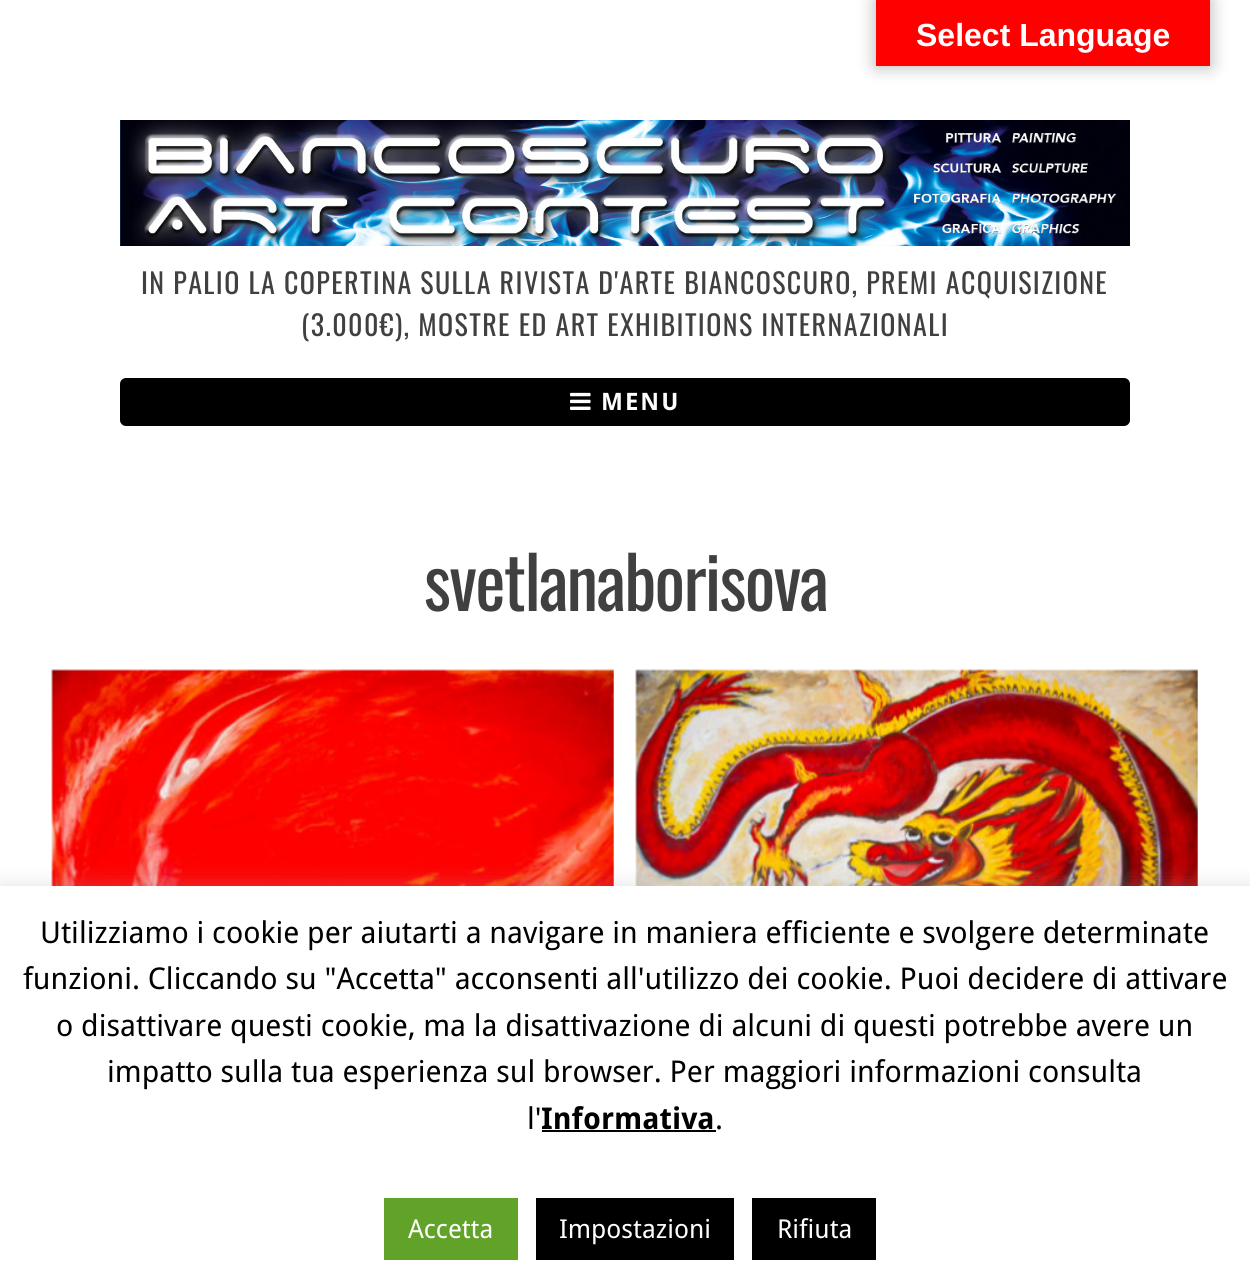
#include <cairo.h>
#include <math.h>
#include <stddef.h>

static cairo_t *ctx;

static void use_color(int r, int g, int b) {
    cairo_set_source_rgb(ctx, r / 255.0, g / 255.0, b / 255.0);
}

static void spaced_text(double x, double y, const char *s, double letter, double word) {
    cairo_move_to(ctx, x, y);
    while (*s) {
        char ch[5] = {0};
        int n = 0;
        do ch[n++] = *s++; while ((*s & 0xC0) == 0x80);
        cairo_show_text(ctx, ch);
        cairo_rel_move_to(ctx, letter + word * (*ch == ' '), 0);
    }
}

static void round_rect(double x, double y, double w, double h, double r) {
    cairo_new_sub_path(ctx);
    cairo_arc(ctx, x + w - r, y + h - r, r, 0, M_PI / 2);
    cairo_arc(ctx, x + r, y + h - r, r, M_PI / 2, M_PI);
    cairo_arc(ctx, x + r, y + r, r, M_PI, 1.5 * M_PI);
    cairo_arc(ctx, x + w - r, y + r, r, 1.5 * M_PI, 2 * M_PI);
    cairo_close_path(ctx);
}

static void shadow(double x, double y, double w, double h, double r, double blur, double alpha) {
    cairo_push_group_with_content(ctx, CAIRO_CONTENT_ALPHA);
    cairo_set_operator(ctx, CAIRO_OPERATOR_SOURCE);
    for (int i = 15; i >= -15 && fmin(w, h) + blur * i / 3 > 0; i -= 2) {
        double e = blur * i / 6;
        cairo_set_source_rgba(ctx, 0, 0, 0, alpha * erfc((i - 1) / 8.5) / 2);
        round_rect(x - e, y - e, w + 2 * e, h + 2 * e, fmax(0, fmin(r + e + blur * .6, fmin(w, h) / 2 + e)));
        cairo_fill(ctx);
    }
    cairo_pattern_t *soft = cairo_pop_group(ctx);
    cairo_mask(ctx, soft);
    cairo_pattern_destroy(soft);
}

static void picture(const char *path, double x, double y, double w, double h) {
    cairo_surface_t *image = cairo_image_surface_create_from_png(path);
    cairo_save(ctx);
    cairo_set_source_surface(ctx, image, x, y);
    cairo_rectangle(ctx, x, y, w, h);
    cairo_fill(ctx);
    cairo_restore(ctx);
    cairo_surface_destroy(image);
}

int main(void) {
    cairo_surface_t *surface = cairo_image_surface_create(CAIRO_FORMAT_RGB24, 1250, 1283);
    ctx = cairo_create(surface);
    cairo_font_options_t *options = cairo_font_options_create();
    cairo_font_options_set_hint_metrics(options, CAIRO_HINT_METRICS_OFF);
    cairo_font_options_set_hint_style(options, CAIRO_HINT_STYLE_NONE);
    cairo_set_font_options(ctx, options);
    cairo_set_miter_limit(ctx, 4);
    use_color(255, 255, 255);
    cairo_paint(ctx);
    use_color(0, 0, 0);
    shadow(876, 0, 334, 66, 0, 9, 0.3);
    use_color(255, 0, 0);
    cairo_rectangle(ctx, 876, 0, 334, 66);
    cairo_fill(ctx);
    cairo_select_font_face(ctx, "Liberation Sans", CAIRO_FONT_SLANT_NORMAL, CAIRO_FONT_WEIGHT_BOLD);
    cairo_set_font_size(ctx, 32);
    use_color(255, 255, 255);
    cairo_move_to(ctx, 916, 46);
    cairo_show_text(ctx, "Select Language");
    picture("img1.png", 120, 120, 1010, 126);
    cairo_select_font_face(ctx, "Oswald", CAIRO_FONT_SLANT_NORMAL, CAIRO_FONT_WEIGHT_NORMAL);
    cairo_set_font_size(ctx, 28);
    use_color(64, 64, 64);
    spaced_text(141, 294, "IN PALIO LA COPERTINA SULLA RIVISTA D'ARTE BIANCOSCURO, PREMI ACQUISIZIONE", 1.4, 0);
    spaced_text(301, 336, "(3.000€), MOSTRE ED ART EXHIBITIONS INTERNAZIONALI", 1.4, 0);
    use_color(0, 0, 0);
    round_rect(121, 379, 1008, 46, 5);
    cairo_fill_preserve(ctx);
    cairo_stroke(ctx);
    picture("img2.png", 570, 392, 21, 18);
    cairo_select_font_face(ctx, "Droid Sans", CAIRO_FONT_SLANT_NORMAL, CAIRO_FONT_WEIGHT_BOLD);
    cairo_set_font_size(ctx, 24);
    use_color(255, 255, 255);
    spaced_text(601, 410, "MENU", 2, 0);
    cairo_select_font_face(ctx, "Oswald", CAIRO_FONT_SLANT_NORMAL, CAIRO_FONT_WEIGHT_NORMAL);
    cairo_set_font_size(ctx, 72);
    use_color(64, 64, 64);
    spaced_text(424, 611, "svetlanaborisova", -1.75, 0);
    picture("img3.png", 51, 669, 563, 217);
    picture("img4.png", 635, 669, 563, 217);
    use_color(172, 171, 171);
    shadow(0, 884, 1250, 398, 0, 10, 0.3);
    use_color(255, 255, 255);
    cairo_rectangle(ctx, 0, 886, 1250, 397);
    cairo_fill(ctx);
    cairo_select_font_face(ctx, "Droid Sans", CAIRO_FONT_SLANT_NORMAL, CAIRO_FONT_WEIGHT_NORMAL);
    cairo_set_font_size(ctx, 30);
    use_color(0, 0, 0);
    cairo_move_to(ctx, 40, 943);
    cairo_show_text(ctx, "Utilizziamo i cookie per aiutarti a navigare in maniera efficiente e svolgere determinate");
    cairo_move_to(ctx, 23, 989);
    cairo_show_text(ctx, "funzioni. Cliccando su \"Accetta\" acconsenti all'utilizzo dei cookie. Puoi decidere di attivare");
    cairo_move_to(ctx, 56, 1036);
    cairo_show_text(ctx, "o disattivare questi cookie, ma la disattivazione di alcuni di questi potrebbe avere un");
    cairo_move_to(ctx, 107, 1082);
    cairo_show_text(ctx, "impatto sulla tua esperienza sul browser. Per maggiori informazioni consulta");
    cairo_move_to(ctx, 527, 1129);
    cairo_show_text(ctx, "l'");
    cairo_select_font_face(ctx, "Droid Sans", CAIRO_FONT_SLANT_NORMAL, CAIRO_FONT_WEIGHT_BOLD);
    cairo_move_to(ctx, 541, 1129);
    cairo_show_text(ctx, "Informativa");
    cairo_rectangle(ctx, 542, 1130, 174, 2);
    cairo_fill(ctx);
    cairo_select_font_face(ctx, "Droid Sans", CAIRO_FONT_SLANT_NORMAL, CAIRO_FONT_WEIGHT_NORMAL);
    cairo_move_to(ctx, 715, 1129);
    cairo_show_text(ctx, ".");
    use_color(97, 162, 41);
    cairo_rectangle(ctx, 384, 1198, 134, 62);
    cairo_fill(ctx);
    cairo_set_font_size(ctx, 26);
    use_color(255, 255, 255);
    cairo_move_to(ctx, 408, 1238);
    cairo_show_text(ctx, "Accetta");
    use_color(0, 0, 0);
    cairo_rectangle(ctx, 536, 1198, 198, 62);
    cairo_fill(ctx);
    use_color(255, 255, 255);
    cairo_move_to(ctx, 559, 1238);
    cairo_show_text(ctx, "Impostazioni");
    use_color(0, 0, 0);
    cairo_rectangle(ctx, 752, 1198, 124, 62);
    cairo_fill(ctx);
    use_color(255, 255, 255);
    cairo_move_to(ctx, 777, 1238);
    cairo_show_text(ctx, "Rifiuta");
    cairo_surface_write_to_png(surface, "result.png");
    cairo_font_options_destroy(options);
    cairo_destroy(ctx);
    cairo_surface_destroy(surface);
    return 0;
}
